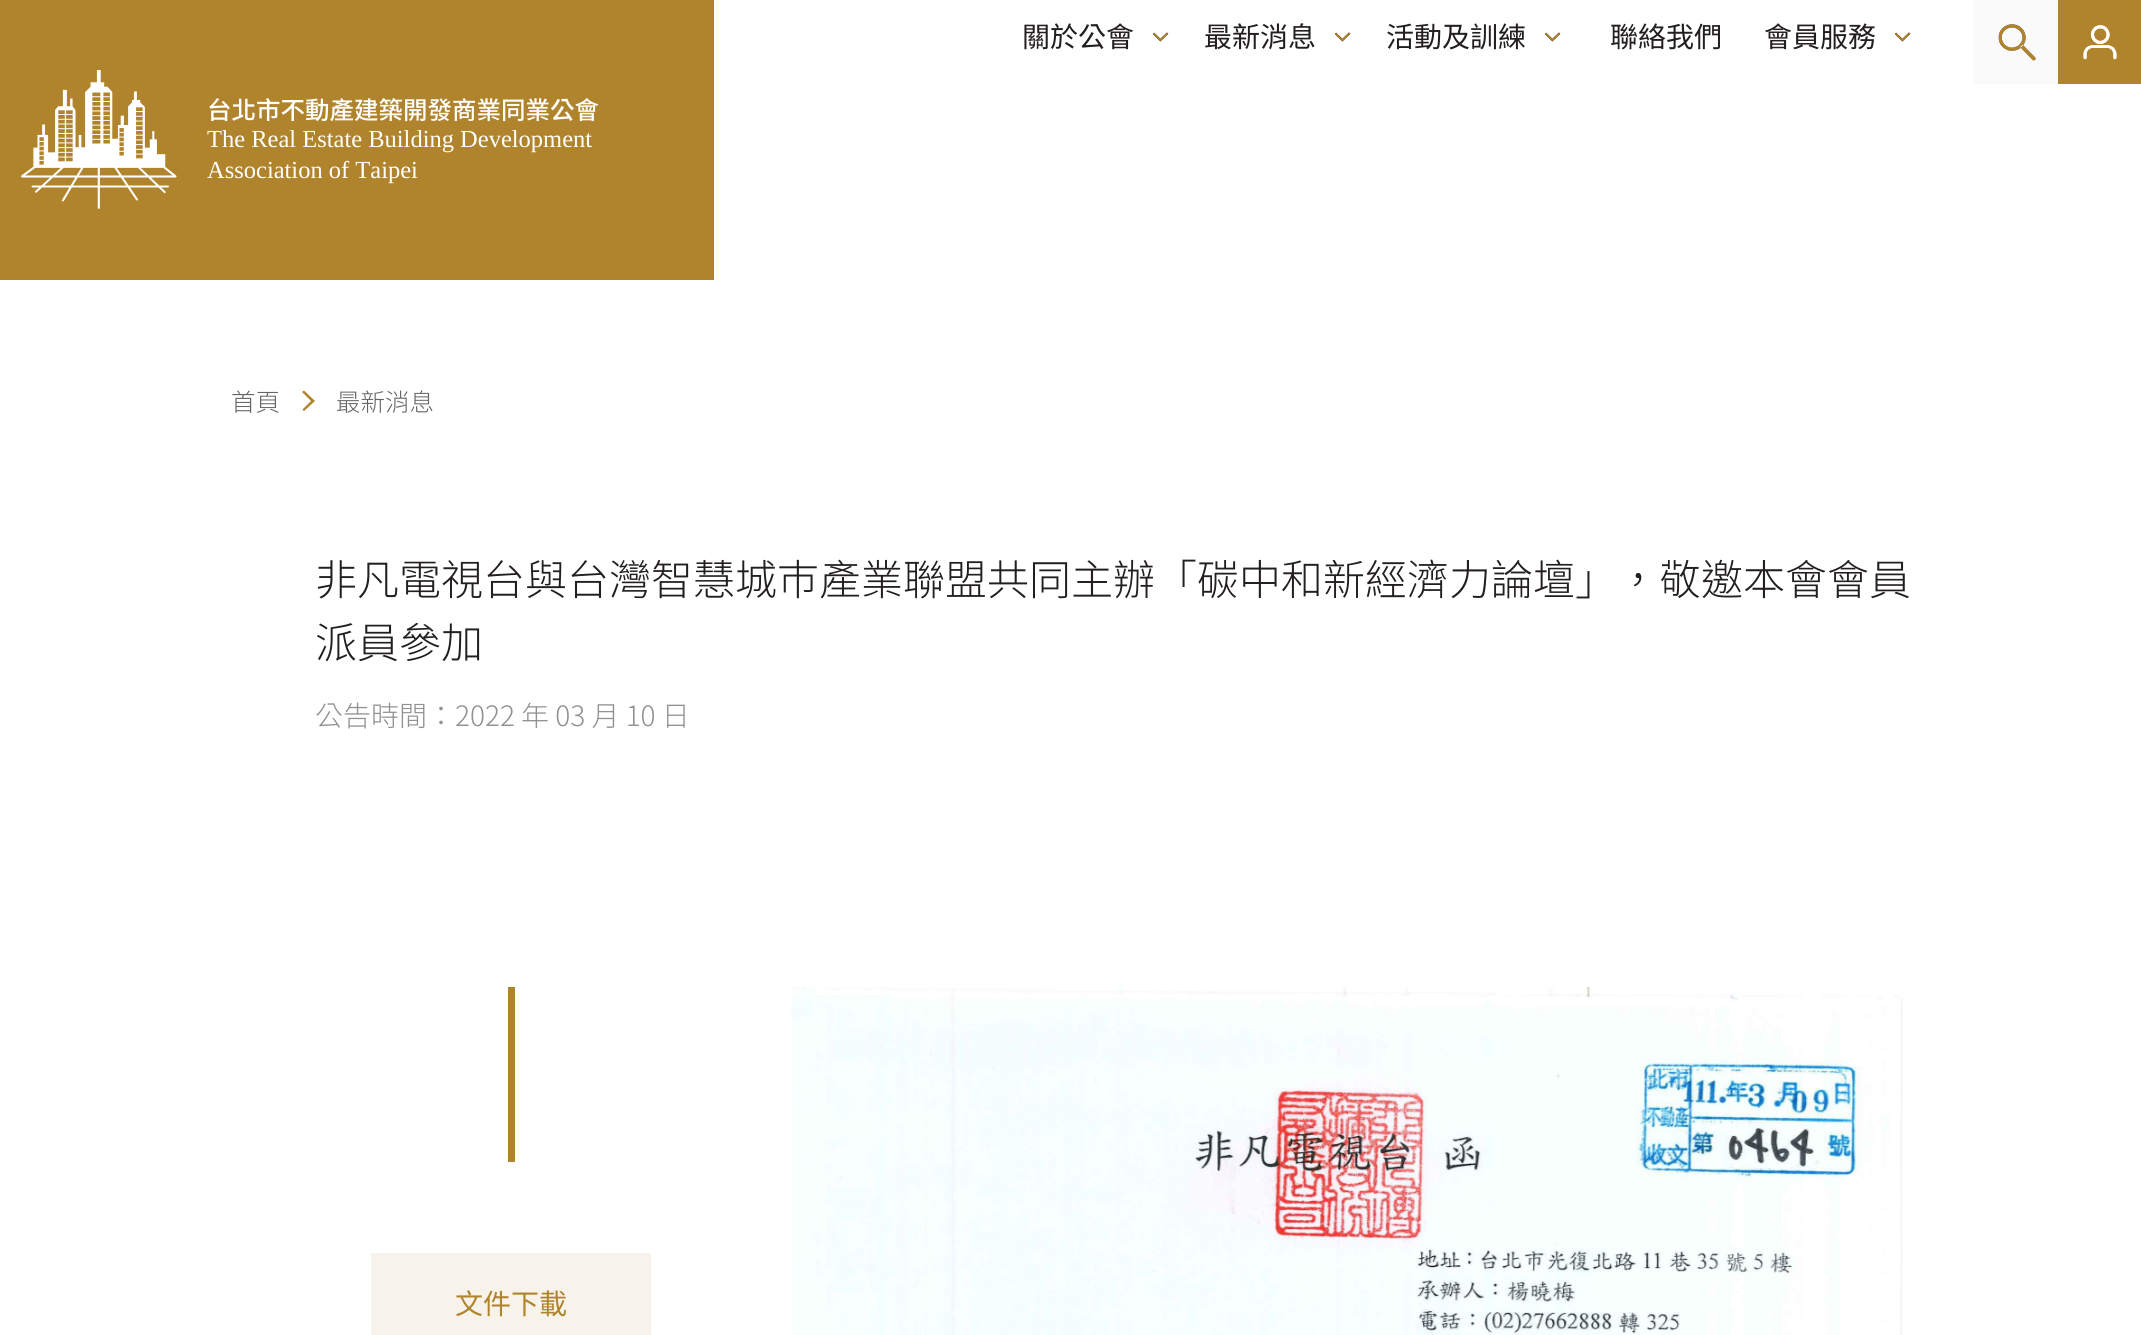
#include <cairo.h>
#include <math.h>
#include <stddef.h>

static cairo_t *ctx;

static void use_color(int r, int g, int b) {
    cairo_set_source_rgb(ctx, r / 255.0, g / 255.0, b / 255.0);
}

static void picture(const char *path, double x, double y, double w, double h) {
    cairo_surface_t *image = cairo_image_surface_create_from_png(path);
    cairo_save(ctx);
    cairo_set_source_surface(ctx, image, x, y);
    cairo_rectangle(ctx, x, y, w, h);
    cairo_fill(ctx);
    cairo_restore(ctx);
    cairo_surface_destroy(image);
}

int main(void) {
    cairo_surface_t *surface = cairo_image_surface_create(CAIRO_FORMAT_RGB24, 2141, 1335);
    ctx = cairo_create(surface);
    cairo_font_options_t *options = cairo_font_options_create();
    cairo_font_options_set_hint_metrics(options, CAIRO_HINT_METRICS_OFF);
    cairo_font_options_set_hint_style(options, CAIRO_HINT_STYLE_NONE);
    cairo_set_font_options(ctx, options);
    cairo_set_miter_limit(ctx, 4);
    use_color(255, 255, 255);
    cairo_paint(ctx);
    cairo_select_font_face(ctx, "Noto Sans TC", CAIRO_FONT_SLANT_NORMAL, CAIRO_FONT_WEIGHT_NORMAL);
    cairo_set_font_size(ctx, 28);
    use_color(35, 31, 32);
    cairo_move_to(ctx, 1022, 47);
    cairo_show_text(ctx, "關於公會");
    picture("img1.png", 1153, 32, 16, 10);
    cairo_move_to(ctx, 1204, 47);
    cairo_show_text(ctx, "最新消息");
    picture("img1.png", 1335, 32, 16, 10);
    cairo_move_to(ctx, 1386, 47);
    cairo_show_text(ctx, "活動及訓練");
    picture("img1.png", 1545, 32, 16, 10);
    cairo_move_to(ctx, 1610, 47);
    cairo_show_text(ctx, "聯絡我們");
    cairo_move_to(ctx, 1764, 47);
    cairo_show_text(ctx, "會員服務");
    picture("img1.png", 1895, 32, 16, 10);
    use_color(250, 250, 250);
    cairo_rectangle(ctx, 1974, 0, 84, 84);
    cairo_fill(ctx);
    picture("img2.png", 1998, 24, 38, 37);
    use_color(176, 131, 45);
    cairo_rectangle(ctx, 2058, 0, 83, 84);
    cairo_fill(ctx);
    picture("img3.png", 2083, 25, 34, 35);
    cairo_rectangle(ctx, 0, 0, 714, 280);
    cairo_fill(ctx);
    picture("img4.png", 21, 70, 156, 139);
    cairo_select_font_face(ctx, "Noto Sans TC Medium", CAIRO_FONT_SLANT_NORMAL, CAIRO_FONT_WEIGHT_NORMAL);
    cairo_set_font_size(ctx, 24.5);
    use_color(255, 255, 255);
    cairo_move_to(ctx, 207, 119);
    cairo_show_text(ctx, "台北市不動產建築開發商業同業公會");
    cairo_select_font_face(ctx, "Tinos", CAIRO_FONT_SLANT_NORMAL, CAIRO_FONT_WEIGHT_NORMAL);
    cairo_move_to(ctx, 207, 147);
    cairo_show_text(ctx, "The Real Estate Building Development");
    cairo_move_to(ctx, 207, 178);
    cairo_show_text(ctx, "Association of Taipei");
    cairo_select_font_face(ctx, "Noto Sans TC Light", CAIRO_FONT_SLANT_NORMAL, CAIRO_FONT_WEIGHT_NORMAL);
    use_color(100, 100, 100);
    cairo_move_to(ctx, 231, 411);
    cairo_show_text(ctx, "首頁");
    use_color(176, 131, 45);
    cairo_new_path(ctx);
    cairo_move_to(ctx, 311, 401);
    cairo_line_to(ctx, 302, 392);
    cairo_line_to(ctx, 304, 390.5);
    cairo_line_to(ctx, 315, 401);
    cairo_line_to(ctx, 304, 411);
    cairo_line_to(ctx, 302.5, 409.5);
    cairo_close_path(ctx);
    cairo_fill(ctx);
    use_color(100, 100, 100);
    cairo_move_to(ctx, 336, 411);
    cairo_show_text(ctx, "最新消息");
    cairo_set_font_size(ctx, 42);
    use_color(35, 31, 32);
    cairo_move_to(ctx, 315, 595);
    cairo_show_text(ctx, "非凡電視台與台灣智慧城巿產業聯盟共同主辦「碳中和新經濟力論壇」，敬邀本會會員");
    cairo_move_to(ctx, 315, 658);
    cairo_show_text(ctx, "派員參加");
    cairo_set_font_size(ctx, 28);
    use_color(145, 145, 145);
    cairo_move_to(ctx, 315, 726);
    cairo_show_text(ctx, "公告時間：2022 年 03 月 10 日");
    use_color(176, 131, 45);
    cairo_rectangle(ctx, 508, 987, 7, 175);
    cairo_fill(ctx);
    use_color(247, 243, 234);
    cairo_rectangle(ctx, 371, 1253, 280, 82);
    cairo_fill(ctx);
    cairo_select_font_face(ctx, "Noto Sans TC", CAIRO_FONT_SLANT_NORMAL, CAIRO_FONT_WEIGHT_NORMAL);
    use_color(176, 131, 45);
    cairo_move_to(ctx, 455, 1314);
    cairo_show_text(ctx, "文件下載");
    picture("img5.png", 791, 987, 1112, 348);
    cairo_surface_write_to_png(surface, "result.png");
    cairo_font_options_destroy(options);
    cairo_destroy(ctx);
    cairo_surface_destroy(surface);
    return 0;
}
